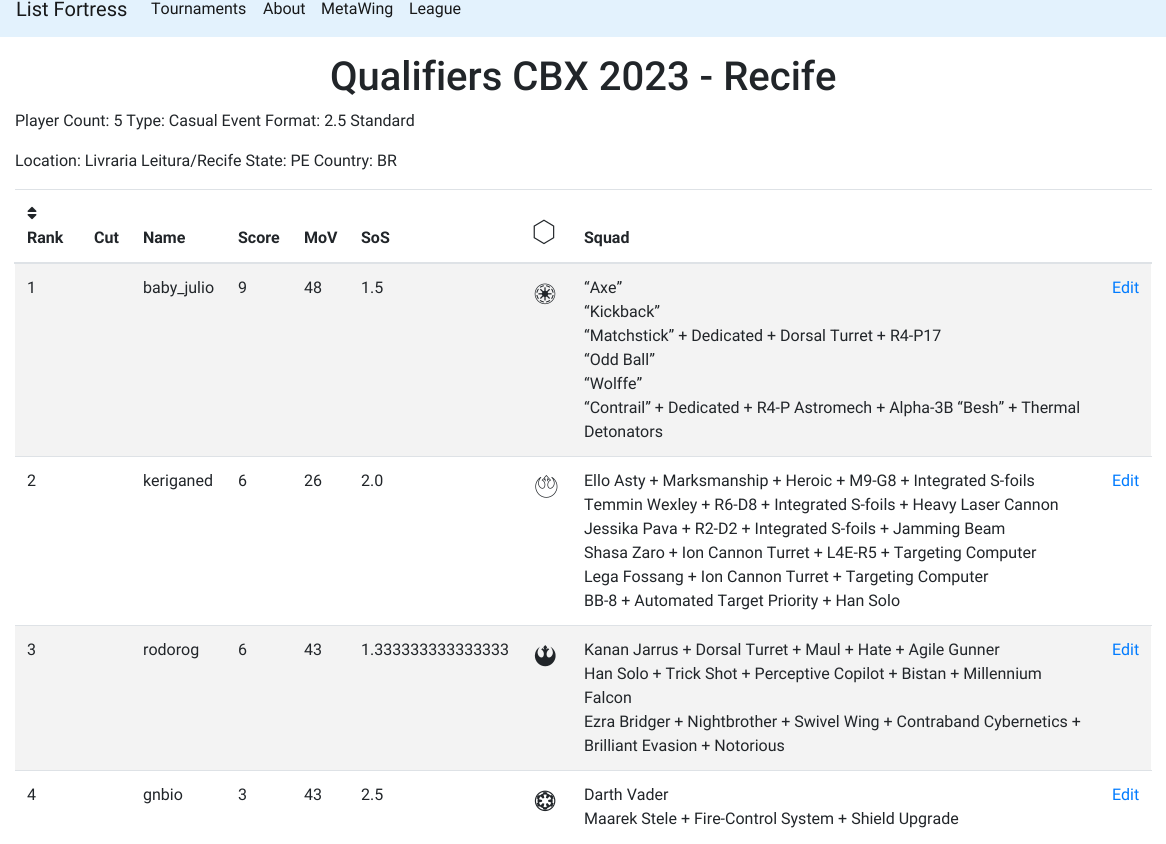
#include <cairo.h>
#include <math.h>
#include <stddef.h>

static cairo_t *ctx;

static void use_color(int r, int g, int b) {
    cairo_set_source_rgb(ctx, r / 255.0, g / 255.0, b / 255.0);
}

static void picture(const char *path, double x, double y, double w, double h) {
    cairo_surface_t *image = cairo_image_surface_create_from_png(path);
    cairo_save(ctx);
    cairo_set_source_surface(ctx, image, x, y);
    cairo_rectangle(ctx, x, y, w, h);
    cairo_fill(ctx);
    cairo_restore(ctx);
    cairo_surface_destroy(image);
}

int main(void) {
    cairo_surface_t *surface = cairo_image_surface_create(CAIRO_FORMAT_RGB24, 1166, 844);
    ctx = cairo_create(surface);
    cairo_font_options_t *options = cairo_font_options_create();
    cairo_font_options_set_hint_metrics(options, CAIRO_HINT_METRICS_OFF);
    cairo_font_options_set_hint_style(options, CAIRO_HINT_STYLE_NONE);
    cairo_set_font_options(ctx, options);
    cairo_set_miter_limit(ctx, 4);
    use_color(255, 255, 255);
    cairo_paint(ctx);
    use_color(227, 242, 253);
    cairo_rectangle(ctx, 0, 0, 1166, 37);
    cairo_fill(ctx);
    cairo_select_font_face(ctx, "Roboto", CAIRO_FONT_SLANT_NORMAL, CAIRO_FONT_WEIGHT_NORMAL);
    cairo_set_font_size(ctx, 20);
    use_color(23, 24, 25);
    cairo_move_to(ctx, 16, 16);
    cairo_show_text(ctx, "List Fortress");
    cairo_set_font_size(ctx, 16);
    cairo_move_to(ctx, 151, 14);
    cairo_show_text(ctx, "Tournaments");
    cairo_move_to(ctx, 263, 14);
    cairo_show_text(ctx, "About");
    cairo_move_to(ctx, 321, 14);
    cairo_show_text(ctx, "MetaWing");
    cairo_move_to(ctx, 409, 14);
    cairo_show_text(ctx, "League");
    cairo_select_font_face(ctx, "Roboto Medium", CAIRO_FONT_SLANT_NORMAL, CAIRO_FONT_WEIGHT_NORMAL);
    cairo_set_font_size(ctx, 40);
    use_color(33, 37, 41);
    cairo_move_to(ctx, 330, 90);
    cairo_show_text(ctx, "Qualifiers CBX 2023 - Recife");
    cairo_select_font_face(ctx, "Roboto", CAIRO_FONT_SLANT_NORMAL, CAIRO_FONT_WEIGHT_NORMAL);
    cairo_set_font_size(ctx, 16);
    cairo_move_to(ctx, 15, 126);
    cairo_show_text(ctx, "Player Count: 5 Type: Casual Event Format: 2.5 Standard");
    cairo_move_to(ctx, 15, 166);
    cairo_show_text(ctx, "Location: Livraria Leitura/Recife State: PE Country: BR");
    use_color(222, 226, 230);
    cairo_rectangle(ctx, 15, 189, 1137, 1);
    cairo_fill(ctx);
    cairo_rectangle(ctx, 14, 262, 1138, 2);
    cairo_fill(ctx);
    picture("img1.png", 27, 206, 10, 14);
    cairo_select_font_face(ctx, "Roboto", CAIRO_FONT_SLANT_NORMAL, CAIRO_FONT_WEIGHT_BOLD);
    use_color(33, 37, 41);
    cairo_move_to(ctx, 27, 243);
    cairo_show_text(ctx, "Rank");
    cairo_move_to(ctx, 94, 243);
    cairo_show_text(ctx, "Cut");
    cairo_move_to(ctx, 143, 243);
    cairo_show_text(ctx, "Name");
    cairo_move_to(ctx, 238, 243);
    cairo_show_text(ctx, "Score");
    cairo_move_to(ctx, 304, 243);
    cairo_show_text(ctx, "MoV");
    cairo_move_to(ctx, 361, 243);
    cairo_show_text(ctx, "SoS");
    picture("img2.png", 533, 219, 22, 26);
    cairo_move_to(ctx, 584, 243);
    cairo_show_text(ctx, "Squad");
    use_color(243, 243, 243);
    cairo_rectangle(ctx, 15, 264, 1136, 192);
    cairo_fill(ctx);
    cairo_select_font_face(ctx, "Roboto", CAIRO_FONT_SLANT_NORMAL, CAIRO_FONT_WEIGHT_NORMAL);
    use_color(33, 37, 41);
    cairo_move_to(ctx, 27, 293);
    cairo_show_text(ctx, "1");
    cairo_move_to(ctx, 143, 293);
    cairo_show_text(ctx, "baby_julio");
    cairo_move_to(ctx, 238, 293);
    cairo_show_text(ctx, "9");
    cairo_move_to(ctx, 304, 293);
    cairo_show_text(ctx, "48");
    cairo_move_to(ctx, 361, 293);
    cairo_show_text(ctx, "1.5");
    picture("img3.png", 534, 283, 22, 22);
    cairo_move_to(ctx, 584, 293);
    cairo_show_text(ctx, "“Axe”");
    cairo_move_to(ctx, 584, 317);
    cairo_show_text(ctx, "“Kickback”");
    cairo_move_to(ctx, 584, 341);
    cairo_show_text(ctx, "“Matchstick” + Dedicated + Dorsal Turret + R4-P17");
    cairo_move_to(ctx, 584, 365);
    cairo_show_text(ctx, "“Odd Ball”");
    cairo_move_to(ctx, 584, 389);
    cairo_show_text(ctx, "“Wolffe”");
    cairo_move_to(ctx, 584, 413);
    cairo_show_text(ctx, "“Contrail” + Dedicated + R4-P Astromech + Alpha-3B “Besh” + Thermal");
    cairo_move_to(ctx, 584, 437);
    cairo_show_text(ctx, "Detonators");
    use_color(0, 123, 255);
    cairo_move_to(ctx, 1112, 293);
    cairo_show_text(ctx, "Edit");
    use_color(33, 37, 41);
    cairo_move_to(ctx, 27, 486);
    cairo_show_text(ctx, "2");
    cairo_move_to(ctx, 143, 486);
    cairo_show_text(ctx, "keriganed");
    cairo_move_to(ctx, 238, 486);
    cairo_show_text(ctx, "6");
    cairo_move_to(ctx, 304, 486);
    cairo_show_text(ctx, "26");
    cairo_move_to(ctx, 361, 486);
    cairo_show_text(ctx, "2.0");
    picture("img4.png", 535, 475, 23, 23);
    cairo_move_to(ctx, 584, 486);
    cairo_show_text(ctx, "Ello Asty + Marksmanship + Heroic + M9-G8 + Integrated S-foils");
    cairo_move_to(ctx, 584, 510);
    cairo_show_text(ctx, "Temmin Wexley + R6-D8 + Integrated S-foils + Heavy Laser Cannon");
    cairo_move_to(ctx, 584, 534);
    cairo_show_text(ctx, "Jessika Pava + R2-D2 + Integrated S-foils + Jamming Beam");
    cairo_move_to(ctx, 584, 558);
    cairo_show_text(ctx, "Shasa Zaro + Ion Cannon Turret + L4E-R5 + Targeting Computer");
    cairo_move_to(ctx, 584, 582);
    cairo_show_text(ctx, "Lega Fossang + Ion Cannon Turret + Targeting Computer");
    cairo_move_to(ctx, 584, 606);
    cairo_show_text(ctx, "BB-8 + Automated Target Priority + Han Solo");
    use_color(222, 226, 230);
    cairo_rectangle(ctx, 15, 456, 1137, 1);
    cairo_fill(ctx);
    use_color(0, 123, 255);
    cairo_move_to(ctx, 1112, 486);
    cairo_show_text(ctx, "Edit");
    use_color(243, 243, 243);
    cairo_rectangle(ctx, 15, 626, 1136, 144);
    cairo_fill(ctx);
    use_color(33, 37, 41);
    cairo_move_to(ctx, 27, 655);
    cairo_show_text(ctx, "3");
    cairo_move_to(ctx, 143, 655);
    cairo_show_text(ctx, "rodorog");
    cairo_move_to(ctx, 238, 655);
    cairo_show_text(ctx, "6");
    cairo_move_to(ctx, 304, 655);
    cairo_show_text(ctx, "43");
    cairo_move_to(ctx, 361, 655);
    cairo_show_text(ctx, "1.333333333333333");
    picture("img5.png", 534, 645, 22, 22);
    cairo_move_to(ctx, 584, 655);
    cairo_show_text(ctx, "Kanan Jarrus + Dorsal Turret + Maul + Hate + Agile Gunner");
    cairo_move_to(ctx, 584, 679);
    cairo_show_text(ctx, "Han Solo + Trick Shot + Perceptive Copilot + Bistan + Millennium");
    cairo_move_to(ctx, 584, 703);
    cairo_show_text(ctx, "Falcon");
    cairo_move_to(ctx, 584, 727);
    cairo_show_text(ctx, "Ezra Bridger + Nightbrother + Swivel Wing + Contraband Cybernetics +");
    cairo_move_to(ctx, 584, 751);
    cairo_show_text(ctx, "Brilliant Evasion + Notorious");
    use_color(222, 226, 230);
    cairo_rectangle(ctx, 15, 625, 1137, 1);
    cairo_fill(ctx);
    use_color(0, 123, 255);
    cairo_move_to(ctx, 1112, 655);
    cairo_show_text(ctx, "Edit");
    use_color(33, 37, 41);
    cairo_move_to(ctx, 27, 800);
    cairo_show_text(ctx, "4");
    cairo_move_to(ctx, 143, 800);
    cairo_show_text(ctx, "gnbio");
    cairo_move_to(ctx, 238, 800);
    cairo_show_text(ctx, "3");
    cairo_move_to(ctx, 304, 800);
    cairo_show_text(ctx, "43");
    cairo_move_to(ctx, 361, 800);
    cairo_show_text(ctx, "2.5");
    picture("img6.png", 534, 790, 22, 22);
    cairo_move_to(ctx, 584, 800);
    cairo_show_text(ctx, "Darth Vader");
    cairo_move_to(ctx, 584, 824);
    cairo_show_text(ctx, "Maarek Stele + Fire-Control System + Shield Upgrade");
    use_color(222, 226, 230);
    cairo_rectangle(ctx, 15, 770, 1137, 1);
    cairo_fill(ctx);
    use_color(0, 123, 255);
    cairo_move_to(ctx, 1112, 800);
    cairo_show_text(ctx, "Edit");
    cairo_surface_write_to_png(surface, "result.png");
    cairo_font_options_destroy(options);
    cairo_destroy(ctx);
    cairo_surface_destroy(surface);
    return 0;
}
